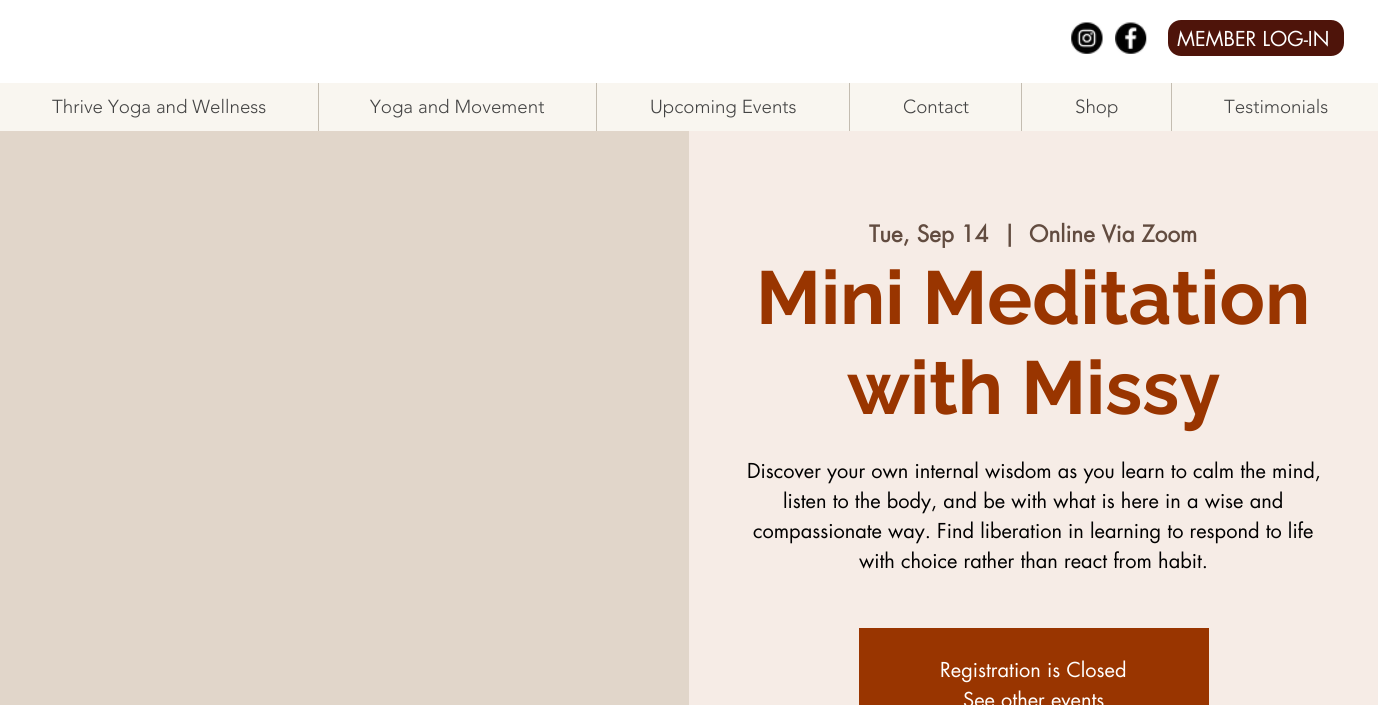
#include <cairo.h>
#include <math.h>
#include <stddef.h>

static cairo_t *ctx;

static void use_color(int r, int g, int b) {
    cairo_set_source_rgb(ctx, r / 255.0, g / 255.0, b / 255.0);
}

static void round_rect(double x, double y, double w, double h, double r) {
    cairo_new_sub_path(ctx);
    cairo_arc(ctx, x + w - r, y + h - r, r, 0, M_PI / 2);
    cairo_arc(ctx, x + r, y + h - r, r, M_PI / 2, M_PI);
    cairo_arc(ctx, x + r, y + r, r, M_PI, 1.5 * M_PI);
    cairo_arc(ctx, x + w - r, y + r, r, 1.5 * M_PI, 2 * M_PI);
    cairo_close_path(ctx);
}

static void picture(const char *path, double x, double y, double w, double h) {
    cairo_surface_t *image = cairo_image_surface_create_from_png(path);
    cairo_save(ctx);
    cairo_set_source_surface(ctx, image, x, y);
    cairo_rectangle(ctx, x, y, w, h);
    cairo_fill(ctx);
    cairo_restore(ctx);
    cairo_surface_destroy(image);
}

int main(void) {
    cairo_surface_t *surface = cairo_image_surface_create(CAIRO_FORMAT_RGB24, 1378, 705);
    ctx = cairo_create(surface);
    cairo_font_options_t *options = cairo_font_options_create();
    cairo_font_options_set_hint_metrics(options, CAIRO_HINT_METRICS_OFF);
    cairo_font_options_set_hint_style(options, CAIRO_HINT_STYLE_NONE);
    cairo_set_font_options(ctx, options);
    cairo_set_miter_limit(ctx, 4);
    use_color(225, 214, 202);
    cairo_paint(ctx);
    use_color(255, 255, 255);
    cairo_rectangle(ctx, 0, 0, 1378, 83);
    cairo_fill(ctx);
    picture("img1.png", 1071, 22, 32, 32);
    picture("img2.png", 1115, 22, 32, 32);
    use_color(78, 20, 10);
    round_rect(1168, 20, 176, 36, 13);
    cairo_fill(ctx);
    cairo_select_font_face(ctx, "futura", CAIRO_FONT_SLANT_NORMAL, CAIRO_FONT_WEIGHT_NORMAL);
    cairo_set_font_size(ctx, 20);
    use_color(255, 255, 255);
    cairo_move_to(ctx, 1177, 46);
    cairo_show_text(ctx, "MEMBER LOG-IN");
    use_color(249, 246, 240);
    cairo_rectangle(ctx, 0, 83, 1378, 48);
    cairo_fill(ctx);
    cairo_select_font_face(ctx, "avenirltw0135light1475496 Light", CAIRO_FONT_SLANT_NORMAL, CAIRO_FONT_WEIGHT_NORMAL);
    cairo_set_font_size(ctx, 18.75);
    use_color(68, 68, 68);
    cairo_move_to(ctx, 52, 113);
    cairo_show_text(ctx, "Thrive Yoga and Wellness");
    use_color(196, 189, 177);
    cairo_rectangle(ctx, 318, 83, 1, 48);
    cairo_fill(ctx);
    use_color(68, 68, 68);
    cairo_move_to(ctx, 370, 113);
    cairo_show_text(ctx, "Yoga and Movement");
    use_color(196, 189, 177);
    cairo_rectangle(ctx, 596, 83, 1, 48);
    cairo_fill(ctx);
    use_color(68, 68, 68);
    cairo_move_to(ctx, 650, 113);
    cairo_show_text(ctx, "Upcoming Events");
    use_color(196, 189, 177);
    cairo_rectangle(ctx, 849, 83, 1, 48);
    cairo_fill(ctx);
    use_color(68, 68, 68);
    cairo_move_to(ctx, 903, 113);
    cairo_show_text(ctx, "Contact");
    use_color(196, 189, 177);
    cairo_rectangle(ctx, 1021, 83, 1, 48);
    cairo_fill(ctx);
    use_color(68, 68, 68);
    cairo_move_to(ctx, 1075, 113);
    cairo_show_text(ctx, "Shop");
    use_color(196, 189, 177);
    cairo_rectangle(ctx, 1171, 83, 1, 48);
    cairo_fill(ctx);
    use_color(68, 68, 68);
    cairo_move_to(ctx, 1224, 113);
    cairo_show_text(ctx, "Testimonials");
    use_color(246, 236, 230);
    cairo_rectangle(ctx, 689, 131, 689, 574);
    cairo_fill(ctx);
    cairo_select_font_face(ctx, "futura", CAIRO_FONT_SLANT_NORMAL, CAIRO_FONT_WEIGHT_BOLD);
    cairo_set_font_size(ctx, 22.5);
    use_color(98, 76, 64);
    cairo_move_to(ctx, 869, 242);
    cairo_show_text(ctx, "Tue, Sep 14");
    cairo_move_to(ctx, 1003, 242);
    cairo_show_text(ctx, "|");
    cairo_move_to(ctx, 1029, 242);
    cairo_show_text(ctx, "Online Via Zoom");
    cairo_select_font_face(ctx, "Raleway", CAIRO_FONT_SLANT_NORMAL, CAIRO_FONT_WEIGHT_BOLD);
    cairo_set_font_size(ctx, 75);
    use_color(153, 53, 0);
    cairo_move_to(ctx, 756, 324);
    cairo_show_text(ctx, "Mini Meditation");
    cairo_move_to(ctx, 847, 414);
    cairo_show_text(ctx, "with Missy");
    cairo_select_font_face(ctx, "futura", CAIRO_FONT_SLANT_NORMAL, CAIRO_FONT_WEIGHT_NORMAL);
    cairo_set_font_size(ctx, 20);
    use_color(0, 0, 0);
    cairo_move_to(ctx, 747, 478);
    cairo_show_text(ctx, "Discover your own internal wisdom as you learn to calm the mind,");
    cairo_move_to(ctx, 783, 508);
    cairo_show_text(ctx, "listen to the body, and be with what is here in a wise and");
    cairo_move_to(ctx, 753, 538);
    cairo_show_text(ctx, "compassionate way. Find liberation in learning to respond to life");
    cairo_move_to(ctx, 859, 568);
    cairo_show_text(ctx, "with choice rather than react from habit.");
    use_color(153, 53, 0);
    cairo_rectangle(ctx, 859, 628, 350, 77);
    cairo_fill(ctx);
    use_color(255, 255, 255);
    cairo_move_to(ctx, 940, 677);
    cairo_show_text(ctx, "Registration is Closed");
    cairo_move_to(ctx, 963, 707);
    cairo_show_text(ctx, "See other events");
    cairo_surface_write_to_png(surface, "result.png");
    cairo_font_options_destroy(options);
    cairo_destroy(ctx);
    cairo_surface_destroy(surface);
    return 0;
}
